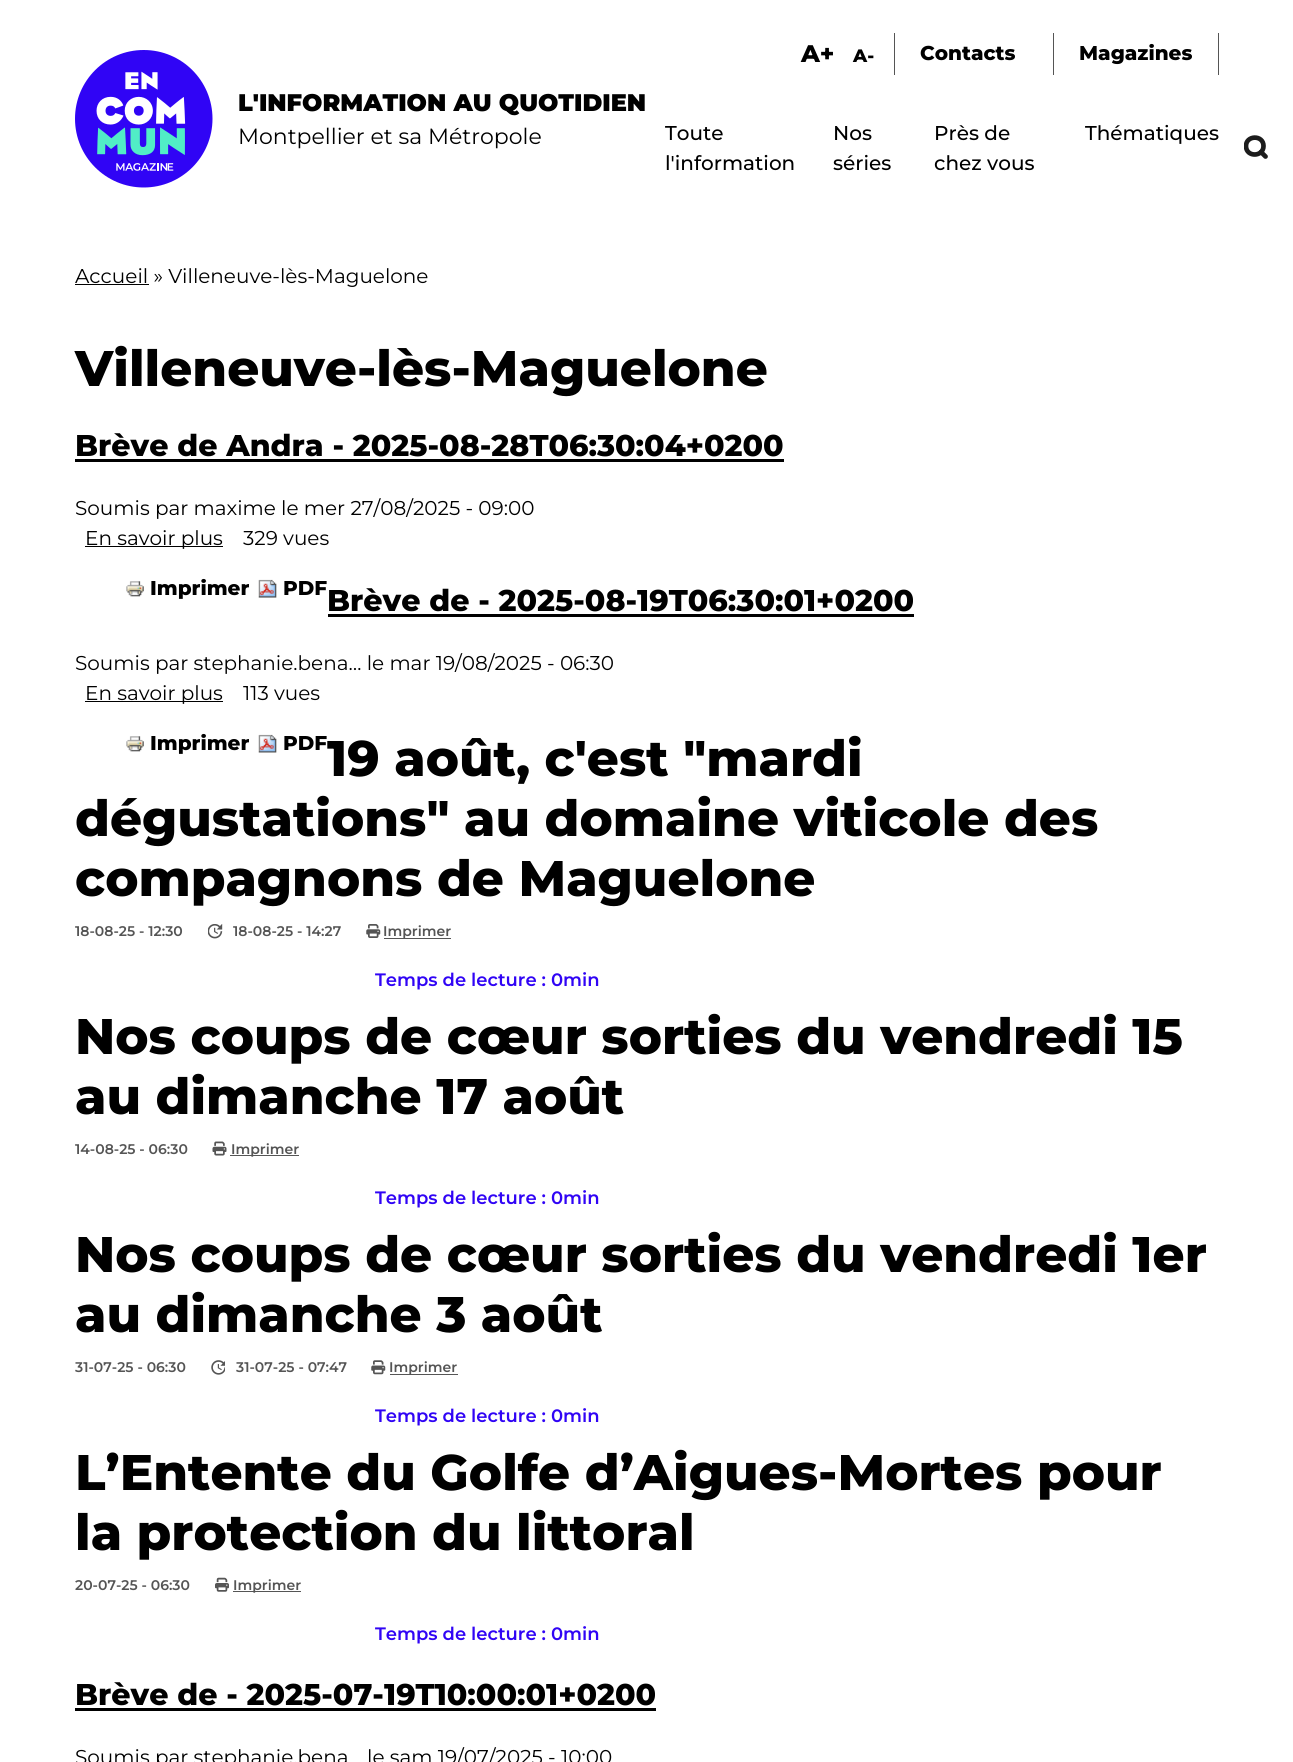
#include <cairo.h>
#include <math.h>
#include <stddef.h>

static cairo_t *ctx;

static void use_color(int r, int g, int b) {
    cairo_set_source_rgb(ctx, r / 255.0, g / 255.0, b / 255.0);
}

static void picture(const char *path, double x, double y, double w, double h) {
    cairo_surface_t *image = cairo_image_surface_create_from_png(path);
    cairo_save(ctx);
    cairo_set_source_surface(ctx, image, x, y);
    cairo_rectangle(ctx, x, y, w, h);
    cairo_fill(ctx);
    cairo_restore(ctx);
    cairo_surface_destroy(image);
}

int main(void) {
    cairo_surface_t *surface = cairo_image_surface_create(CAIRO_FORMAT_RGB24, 1293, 1762);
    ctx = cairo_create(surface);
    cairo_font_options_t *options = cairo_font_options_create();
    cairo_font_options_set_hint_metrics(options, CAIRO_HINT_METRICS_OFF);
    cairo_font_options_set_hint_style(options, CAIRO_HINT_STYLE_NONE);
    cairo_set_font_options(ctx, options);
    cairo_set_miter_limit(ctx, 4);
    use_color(255, 255, 255);
    cairo_paint(ctx);
    picture("img1.png", 75, 50, 138, 138);
    cairo_select_font_face(ctx, "Montserrat Black", CAIRO_FONT_SLANT_NORMAL, CAIRO_FONT_WEIGHT_NORMAL);
    cairo_set_font_size(ctx, 24);
    use_color(0, 0, 0);
    cairo_move_to(ctx, 238, 111);
    cairo_show_text(ctx, "L'INFORMATION AU QUOTIDIEN");
    cairo_select_font_face(ctx, "Montserrat", CAIRO_FONT_SLANT_NORMAL, CAIRO_FONT_WEIGHT_NORMAL);
    cairo_set_font_size(ctx, 22);
    cairo_move_to(ctx, 238, 144);
    cairo_show_text(ctx, "Montpellier et sa Métropole");
    cairo_select_font_face(ctx, "Montserrat ExtraBold", CAIRO_FONT_SLANT_NORMAL, CAIRO_FONT_WEIGHT_NORMAL);
    cairo_set_font_size(ctx, 24);
    cairo_move_to(ctx, 801, 62);
    cairo_show_text(ctx, "A+");
    cairo_set_font_size(ctx, 18);
    cairo_move_to(ctx, 853, 62);
    cairo_show_text(ctx, "A-");
    use_color(85, 85, 85);
    cairo_rectangle(ctx, 894, 33, 1, 42);
    cairo_fill(ctx);
    cairo_set_font_size(ctx, 20);
    use_color(0, 0, 0);
    cairo_move_to(ctx, 920, 60);
    cairo_show_text(ctx, "Contacts");
    use_color(85, 85, 85);
    cairo_rectangle(ctx, 1218, 33, 1, 42);
    cairo_fill(ctx);
    cairo_rectangle(ctx, 1053, 33, 1, 42);
    cairo_fill(ctx);
    use_color(0, 0, 0);
    cairo_move_to(ctx, 1079, 60);
    cairo_show_text(ctx, "Magazines");
    cairo_select_font_face(ctx, "Montserrat Medium", CAIRO_FONT_SLANT_NORMAL, CAIRO_FONT_WEIGHT_NORMAL);
    cairo_move_to(ctx, 665, 140);
    cairo_show_text(ctx, "Toute");
    cairo_move_to(ctx, 665, 170);
    cairo_show_text(ctx, "l'information");
    cairo_move_to(ctx, 833, 140);
    cairo_show_text(ctx, "Nos");
    cairo_move_to(ctx, 833, 170);
    cairo_show_text(ctx, "séries");
    cairo_move_to(ctx, 934, 140);
    cairo_show_text(ctx, "Près de");
    cairo_move_to(ctx, 934, 170);
    cairo_show_text(ctx, "chez vous");
    cairo_move_to(ctx, 1085, 140);
    cairo_show_text(ctx, "Thématiques");
    cairo_save(ctx);
    cairo_rectangle(ctx, 1244, 135, 25, 25);
    cairo_clip(ctx);
    cairo_new_path(ctx);
    cairo_move_to(ctx, 1263.5, 146);
    cairo_curve_to(ctx, 1263.5, 157, 1246.5, 157.5, 1246, 146.5);
    cairo_curve_to(ctx, 1245.5, 135, 1263.5, 134.5, 1263.5, 146);
    cairo_close_path(ctx);
    use_color(28, 28, 28);
    cairo_set_line_width(ctx, 4.7);
    cairo_set_line_cap(ctx, CAIRO_LINE_CAP_ROUND);
    cairo_stroke(ctx);
    cairo_restore(ctx);
    cairo_new_path(ctx);
    cairo_move_to(ctx, 1265.5, 156.5);
    cairo_line_to(ctx, 1261, 152);
    use_color(28, 28, 28);
    cairo_set_line_width(ctx, 4.7);
    cairo_set_line_cap(ctx, CAIRO_LINE_CAP_ROUND);
    cairo_set_line_join(ctx, CAIRO_LINE_JOIN_ROUND);
    cairo_stroke(ctx);
    use_color(0, 0, 0);
    cairo_rectangle(ctx, 75, 284, 74, 1);
    cairo_fill(ctx);
    cairo_select_font_face(ctx, "Montserrat", CAIRO_FONT_SLANT_NORMAL, CAIRO_FONT_WEIGHT_NORMAL);
    cairo_move_to(ctx, 75, 283);
    cairo_show_text(ctx, "Accueil » Villeneuve-lès-Maguelone");
    cairo_select_font_face(ctx, "Montserrat ExtraBold", CAIRO_FONT_SLANT_NORMAL, CAIRO_FONT_WEIGHT_NORMAL);
    cairo_set_font_size(ctx, 50);
    cairo_move_to(ctx, 75, 386);
    cairo_show_text(ctx, "Villeneuve-lès-Maguelone");
    cairo_set_font_size(ctx, 30);
    cairo_move_to(ctx, 75, 456);
    cairo_show_text(ctx, "Brève de Andra - 2025-08-28T06:30:04+0200");
    cairo_rectangle(ctx, 75, 459, 709, 3);
    cairo_fill(ctx);
    cairo_select_font_face(ctx, "Montserrat", CAIRO_FONT_SLANT_NORMAL, CAIRO_FONT_WEIGHT_NORMAL);
    cairo_set_font_size(ctx, 20);
    cairo_move_to(ctx, 75, 515);
    cairo_show_text(ctx, "Soumis par maxime le mer 27/08/2025 - 09:00");
    cairo_rectangle(ctx, 85, 546, 138, 1);
    cairo_fill(ctx);
    cairo_move_to(ctx, 85, 545);
    cairo_show_text(ctx, "En savoir plus");
    cairo_move_to(ctx, 243, 545);
    cairo_show_text(ctx, "329 vues");
    picture("img2.png", 126, 581, 18, 16);
    cairo_select_font_face(ctx, "Montserrat ExtraBold", CAIRO_FONT_SLANT_NORMAL, CAIRO_FONT_WEIGHT_NORMAL);
    cairo_move_to(ctx, 150, 595);
    cairo_show_text(ctx, "Imprimer");
    picture("img3.png", 258, 579, 19, 19);
    cairo_move_to(ctx, 283, 595);
    cairo_show_text(ctx, "PDF");
    cairo_set_font_size(ctx, 30);
    cairo_move_to(ctx, 327, 611);
    cairo_show_text(ctx, "Brève de - 2025-08-19T06:30:01+0200");
    cairo_rectangle(ctx, 328, 614, 586, 3);
    cairo_fill(ctx);
    cairo_select_font_face(ctx, "Montserrat", CAIRO_FONT_SLANT_NORMAL, CAIRO_FONT_WEIGHT_NORMAL);
    cairo_set_font_size(ctx, 20);
    cairo_move_to(ctx, 75, 670);
    cairo_show_text(ctx, "Soumis par stephanie.bena… le mar 19/08/2025 - 06:30");
    cairo_rectangle(ctx, 85, 701, 138, 1);
    cairo_fill(ctx);
    cairo_move_to(ctx, 85, 700);
    cairo_show_text(ctx, "En savoir plus");
    cairo_move_to(ctx, 243, 700);
    cairo_show_text(ctx, "113 vues");
    picture("img4.png", 126, 736, 18, 16);
    cairo_select_font_face(ctx, "Montserrat ExtraBold", CAIRO_FONT_SLANT_NORMAL, CAIRO_FONT_WEIGHT_NORMAL);
    cairo_move_to(ctx, 150, 750);
    cairo_show_text(ctx, "Imprimer");
    picture("img5.png", 258, 734, 19, 19);
    cairo_move_to(ctx, 283, 750);
    cairo_show_text(ctx, "PDF");
    cairo_set_font_size(ctx, 50);
    cairo_move_to(ctx, 327, 776);
    cairo_show_text(ctx, "19 août, c'est \"mardi");
    cairo_move_to(ctx, 75, 836);
    cairo_show_text(ctx, "dégustations\" au domaine viticole des");
    cairo_move_to(ctx, 75, 896);
    cairo_show_text(ctx, "compagnons de Maguelone");
    cairo_select_font_face(ctx, "Montserrat SemiBold", CAIRO_FONT_SLANT_NORMAL, CAIRO_FONT_WEIGHT_NORMAL);
    cairo_set_font_size(ctx, 14);
    use_color(85, 85, 85);
    cairo_move_to(ctx, 75, 936);
    cairo_show_text(ctx, "18-08-25 - 12:30");
    picture("img6.png", 208, 924, 15, 15);
    cairo_move_to(ctx, 233, 936);
    cairo_show_text(ctx, "18-08-25 - 14:27");
    picture("img7.png", 366, 924, 15, 14);
    cairo_rectangle(ctx, 384, 938, 67, 1);
    cairo_fill(ctx);
    cairo_move_to(ctx, 383, 936);
    cairo_show_text(ctx, "Imprimer");
    cairo_set_font_size(ctx, 18);
    use_color(48, 4, 245);
    cairo_move_to(ctx, 375, 986);
    cairo_show_text(ctx, "Temps de lecture : 0min");
    cairo_select_font_face(ctx, "Montserrat ExtraBold", CAIRO_FONT_SLANT_NORMAL, CAIRO_FONT_WEIGHT_NORMAL);
    cairo_set_font_size(ctx, 50);
    use_color(0, 0, 0);
    cairo_move_to(ctx, 75, 1054);
    cairo_show_text(ctx, "Nos coups de cœur sorties du vendredi 15");
    cairo_move_to(ctx, 75, 1114);
    cairo_show_text(ctx, "au dimanche 17 août");
    cairo_select_font_face(ctx, "Montserrat SemiBold", CAIRO_FONT_SLANT_NORMAL, CAIRO_FONT_WEIGHT_NORMAL);
    cairo_set_font_size(ctx, 14);
    use_color(85, 85, 85);
    cairo_move_to(ctx, 75, 1154);
    cairo_show_text(ctx, "14-08-25 - 06:30");
    picture("img8.png", 212, 1141, 15, 15);
    cairo_rectangle(ctx, 230, 1155, 69, 1);
    cairo_fill(ctx);
    cairo_move_to(ctx, 231, 1154);
    cairo_show_text(ctx, "Imprimer");
    cairo_set_font_size(ctx, 18);
    use_color(48, 4, 245);
    cairo_move_to(ctx, 375, 1204);
    cairo_show_text(ctx, "Temps de lecture : 0min");
    cairo_select_font_face(ctx, "Montserrat ExtraBold", CAIRO_FONT_SLANT_NORMAL, CAIRO_FONT_WEIGHT_NORMAL);
    cairo_set_font_size(ctx, 50);
    use_color(0, 0, 0);
    cairo_move_to(ctx, 75, 1272);
    cairo_show_text(ctx, "Nos coups de cœur sorties du vendredi 1er");
    cairo_move_to(ctx, 75, 1332);
    cairo_show_text(ctx, "au dimanche 3 août");
    cairo_select_font_face(ctx, "Montserrat SemiBold", CAIRO_FONT_SLANT_NORMAL, CAIRO_FONT_WEIGHT_NORMAL);
    cairo_set_font_size(ctx, 14);
    use_color(85, 85, 85);
    cairo_move_to(ctx, 75, 1372);
    cairo_show_text(ctx, "31-07-25 - 06:30");
    picture("img9.png", 211, 1360, 14, 15);
    cairo_move_to(ctx, 236, 1372);
    cairo_show_text(ctx, "31-07-25 - 07:47");
    picture("img10.png", 371, 1360, 15, 15);
    cairo_rectangle(ctx, 390, 1374, 68, 1);
    cairo_fill(ctx);
    cairo_move_to(ctx, 389, 1372);
    cairo_show_text(ctx, "Imprimer");
    cairo_set_font_size(ctx, 18);
    use_color(48, 4, 245);
    cairo_move_to(ctx, 375, 1422);
    cairo_show_text(ctx, "Temps de lecture : 0min");
    cairo_select_font_face(ctx, "Montserrat ExtraBold", CAIRO_FONT_SLANT_NORMAL, CAIRO_FONT_WEIGHT_NORMAL);
    cairo_set_font_size(ctx, 50);
    use_color(0, 0, 0);
    cairo_move_to(ctx, 75, 1490);
    cairo_show_text(ctx, "L’Entente du Golfe d’Aigues-Mortes pour");
    cairo_move_to(ctx, 75, 1550);
    cairo_show_text(ctx, "la protection du littoral");
    cairo_select_font_face(ctx, "Montserrat SemiBold", CAIRO_FONT_SLANT_NORMAL, CAIRO_FONT_WEIGHT_NORMAL);
    cairo_set_font_size(ctx, 14);
    use_color(85, 85, 85);
    cairo_move_to(ctx, 75, 1590);
    cairo_show_text(ctx, "20-07-25 - 06:30");
    picture("img11.png", 215, 1577, 14, 15);
    cairo_rectangle(ctx, 233, 1591, 68, 1);
    cairo_fill(ctx);
    cairo_move_to(ctx, 233, 1590);
    cairo_show_text(ctx, "Imprimer");
    cairo_set_font_size(ctx, 18);
    use_color(48, 4, 245);
    cairo_move_to(ctx, 375, 1640);
    cairo_show_text(ctx, "Temps de lecture : 0min");
    cairo_select_font_face(ctx, "Montserrat ExtraBold", CAIRO_FONT_SLANT_NORMAL, CAIRO_FONT_WEIGHT_NORMAL);
    cairo_set_font_size(ctx, 30);
    use_color(0, 0, 0);
    cairo_move_to(ctx, 75, 1705);
    cairo_show_text(ctx, "Brève de - 2025-07-19T10:00:01+0200");
    cairo_rectangle(ctx, 75, 1708, 581, 3);
    cairo_fill(ctx);
    cairo_select_font_face(ctx, "Montserrat", CAIRO_FONT_SLANT_NORMAL, CAIRO_FONT_WEIGHT_NORMAL);
    cairo_set_font_size(ctx, 20);
    cairo_move_to(ctx, 75, 1764);
    cairo_show_text(ctx, "Soumis par stephanie.bena");
    cairo_move_to(ctx, 367, 1764);
    cairo_show_text(ctx, "le sam 19/07/2025 - 10:00");
    cairo_surface_write_to_png(surface, "result.png");
    cairo_font_options_destroy(options);
    cairo_destroy(ctx);
    cairo_surface_destroy(surface);
    return 0;
}
